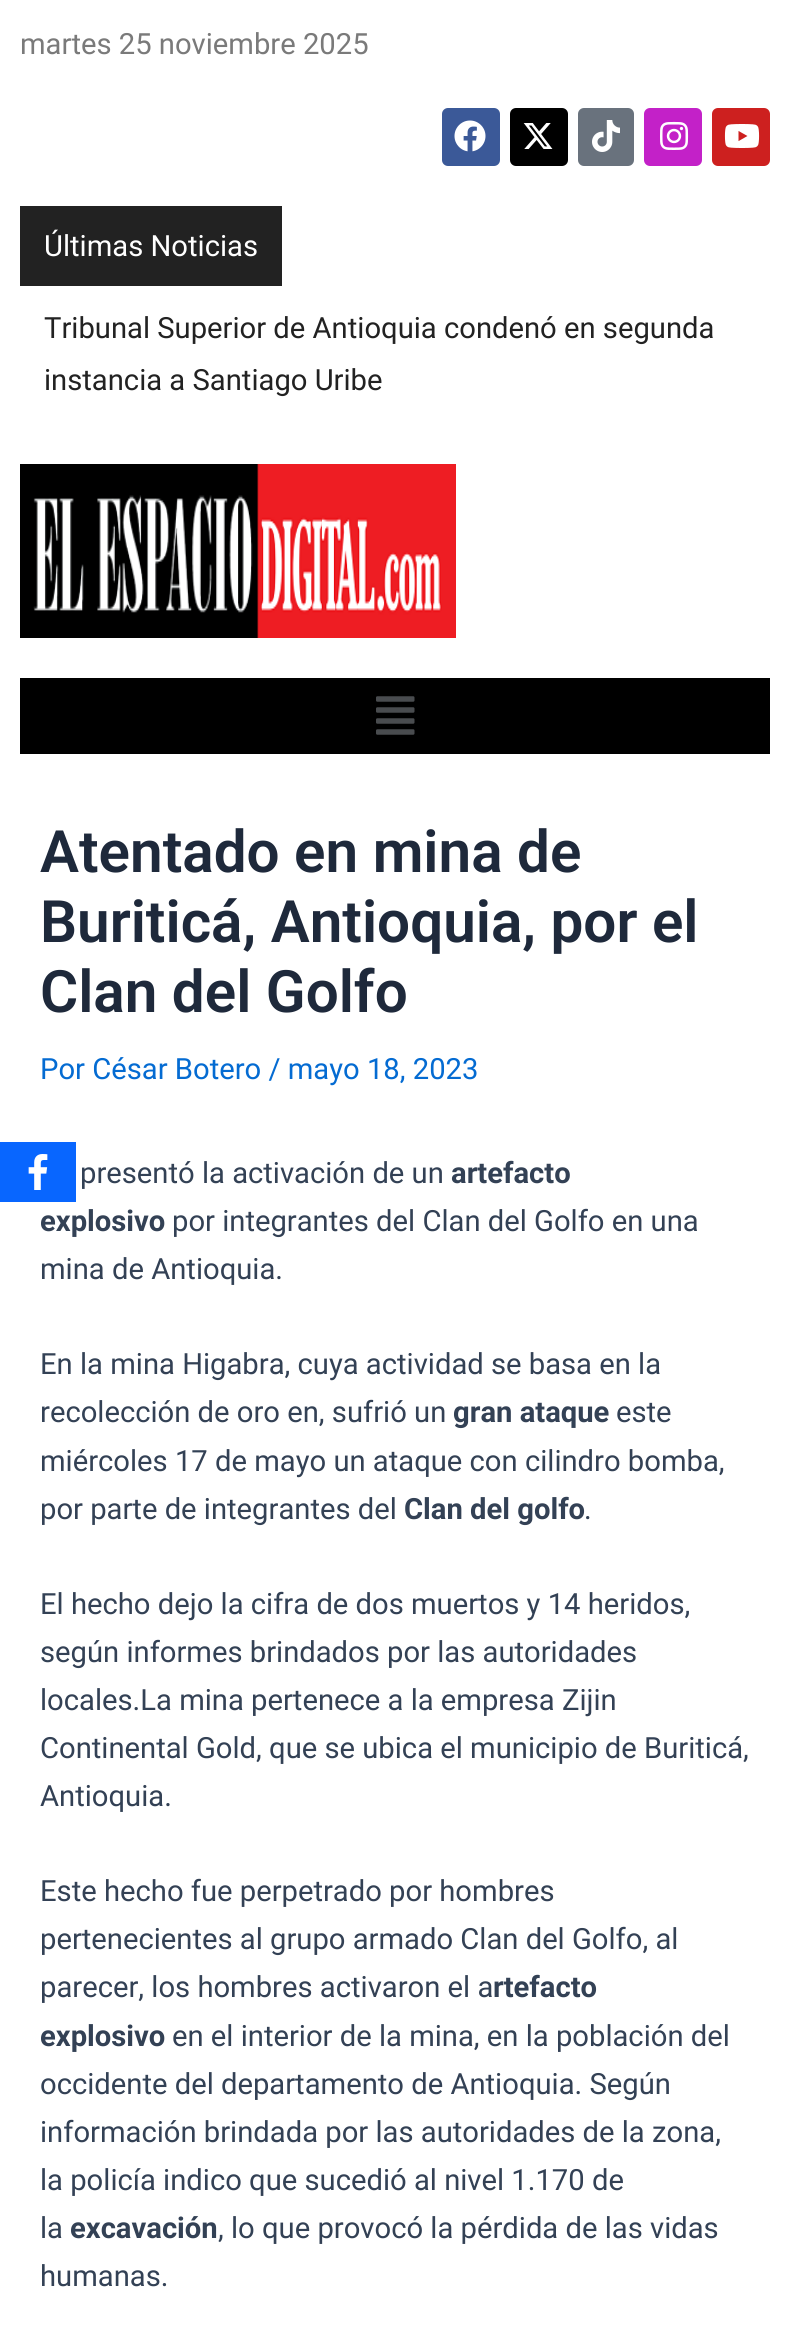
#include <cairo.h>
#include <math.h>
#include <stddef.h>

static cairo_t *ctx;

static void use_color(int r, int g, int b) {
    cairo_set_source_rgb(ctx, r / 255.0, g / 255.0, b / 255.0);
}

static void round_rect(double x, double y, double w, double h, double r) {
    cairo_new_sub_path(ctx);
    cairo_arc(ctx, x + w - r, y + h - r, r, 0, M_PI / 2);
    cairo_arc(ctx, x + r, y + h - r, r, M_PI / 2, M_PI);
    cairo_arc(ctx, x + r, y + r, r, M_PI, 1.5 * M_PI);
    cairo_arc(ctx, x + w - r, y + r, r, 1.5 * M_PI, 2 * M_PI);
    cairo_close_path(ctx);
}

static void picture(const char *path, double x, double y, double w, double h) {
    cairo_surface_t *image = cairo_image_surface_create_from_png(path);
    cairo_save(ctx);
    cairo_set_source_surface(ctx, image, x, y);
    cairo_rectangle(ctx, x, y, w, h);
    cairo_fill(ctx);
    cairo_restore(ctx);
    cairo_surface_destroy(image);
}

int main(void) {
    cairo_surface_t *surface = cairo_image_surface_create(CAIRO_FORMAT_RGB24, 789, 2342);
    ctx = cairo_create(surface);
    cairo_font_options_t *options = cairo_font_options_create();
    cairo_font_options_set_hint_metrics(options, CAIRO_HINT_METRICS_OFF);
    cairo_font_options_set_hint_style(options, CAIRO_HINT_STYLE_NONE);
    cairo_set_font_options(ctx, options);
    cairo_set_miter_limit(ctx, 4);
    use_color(255, 255, 255);
    cairo_paint(ctx);
    cairo_select_font_face(ctx, "Roboto", CAIRO_FONT_SLANT_NORMAL, CAIRO_FONT_WEIGHT_NORMAL);
    cairo_set_font_size(ctx, 29.2);
    use_color(122, 122, 122);
    cairo_move_to(ctx, 20, 54);
    cairo_show_text(ctx, "martes 25 noviembre 2025");
    use_color(59, 89, 152);
    round_rect(442, 108, 58, 58, 6);
    cairo_fill(ctx);
    picture("img1.png", 454, 120, 32, 32);
    use_color(0, 0, 0);
    round_rect(510, 108, 58, 58, 6);
    cairo_fill(ctx);
    picture("img2.png", 523, 123, 30, 26);
    use_color(105, 114, 125);
    round_rect(578, 108, 56, 58, 6);
    cairo_fill(ctx);
    picture("img3.png", 592, 120, 28, 32);
    use_color(195, 33, 200);
    round_rect(644, 108, 58, 58, 6);
    cairo_fill(ctx);
    picture("img4.png", 660, 121, 29, 29);
    use_color(205, 32, 31);
    round_rect(712, 108, 58, 58, 6);
    cairo_fill(ctx);
    picture("img5.png", 724, 124, 36, 24);
    use_color(34, 34, 34);
    cairo_rectangle(ctx, 20, 206, 262, 80);
    cairo_fill(ctx);
    use_color(255, 255, 255);
    cairo_move_to(ctx, 44, 256);
    cairo_show_text(ctx, "Últimas Noticias");
    use_color(34, 34, 34);
    cairo_move_to(ctx, 44, 338);
    cairo_show_text(ctx, "Tribunal Superior de Antioquia condenó en segunda");
    cairo_move_to(ctx, 44, 390);
    cairo_show_text(ctx, "instancia a Santiago Uribe");
    picture("img6.png", 20, 464, 436, 174);
    use_color(0, 0, 0);
    cairo_rectangle(ctx, 20, 678, 750, 76);
    cairo_fill(ctx);
    picture("img7.png", 376, 696, 39, 39);
    cairo_select_font_face(ctx, "Roboto SemiBold", CAIRO_FONT_SLANT_NORMAL, CAIRO_FONT_WEIGHT_NORMAL);
    cairo_set_font_size(ctx, 58.4);
    use_color(30, 41, 59);
    cairo_move_to(ctx, 40, 872);
    cairo_show_text(ctx, "Atentado en mina de");
    cairo_move_to(ctx, 40, 942);
    cairo_show_text(ctx, "Buriticá, Antioquia, por el");
    cairo_move_to(ctx, 40, 1012);
    cairo_show_text(ctx, "Clan del Golfo");
    cairo_select_font_face(ctx, "Roboto", CAIRO_FONT_SLANT_NORMAL, CAIRO_FONT_WEIGHT_NORMAL);
    cairo_set_font_size(ctx, 29.2);
    use_color(4, 107, 210);
    cairo_move_to(ctx, 40, 1079);
    cairo_show_text(ctx, "Por César Botero / mayo 18, 2023");
    use_color(51, 65, 85);
    cairo_move_to(ctx, 80, 1183);
    cairo_show_text(ctx, "presentó la activación de un");
    cairo_select_font_face(ctx, "Roboto", CAIRO_FONT_SLANT_NORMAL, CAIRO_FONT_WEIGHT_BOLD);
    cairo_move_to(ctx, 451, 1183);
    cairo_show_text(ctx, "artefacto");
    cairo_move_to(ctx, 40, 1231);
    cairo_show_text(ctx, "explosivo");
    cairo_select_font_face(ctx, "Roboto", CAIRO_FONT_SLANT_NORMAL, CAIRO_FONT_WEIGHT_NORMAL);
    cairo_move_to(ctx, 172, 1231);
    cairo_show_text(ctx, "por integrantes del Clan del Golfo en una");
    cairo_move_to(ctx, 40, 1279);
    cairo_show_text(ctx, "mina de Antioquia.");
    cairo_move_to(ctx, 40, 1374);
    cairo_show_text(ctx, "En la mina Higabra, cuya actividad se basa en la");
    cairo_move_to(ctx, 40, 1422);
    cairo_show_text(ctx, "recolección de oro en, sufrió un");
    cairo_select_font_face(ctx, "Roboto", CAIRO_FONT_SLANT_NORMAL, CAIRO_FONT_WEIGHT_BOLD);
    cairo_move_to(ctx, 453, 1422);
    cairo_show_text(ctx, "gran ataque");
    cairo_select_font_face(ctx, "Roboto", CAIRO_FONT_SLANT_NORMAL, CAIRO_FONT_WEIGHT_NORMAL);
    cairo_move_to(ctx, 616, 1422);
    cairo_show_text(ctx, "este");
    cairo_move_to(ctx, 40, 1471);
    cairo_show_text(ctx, "miércoles 17 de mayo un ataque con cilindro bomba,");
    cairo_move_to(ctx, 40, 1519);
    cairo_show_text(ctx, "por parte de integrantes del");
    cairo_select_font_face(ctx, "Roboto", CAIRO_FONT_SLANT_NORMAL, CAIRO_FONT_WEIGHT_BOLD);
    cairo_move_to(ctx, 404, 1519);
    cairo_show_text(ctx, "Clan del golfo");
    cairo_select_font_face(ctx, "Roboto", CAIRO_FONT_SLANT_NORMAL, CAIRO_FONT_WEIGHT_NORMAL);
    cairo_move_to(ctx, 584, 1519);
    cairo_show_text(ctx, ".");
    cairo_move_to(ctx, 40, 1614);
    cairo_show_text(ctx, "El hecho dejo la cifra de dos muertos y 14 heridos,");
    cairo_move_to(ctx, 40, 1662);
    cairo_show_text(ctx, "según informes brindados por las autoridades");
    cairo_move_to(ctx, 40, 1710);
    cairo_show_text(ctx, "locales.La mina pertenece a la empresa Zijin");
    cairo_move_to(ctx, 40, 1758);
    cairo_show_text(ctx, "Continental Gold, que se ubica el municipio de Buriticá,");
    cairo_move_to(ctx, 40, 1806);
    cairo_show_text(ctx, "Antioquia.");
    cairo_move_to(ctx, 40, 1901);
    cairo_show_text(ctx, "Este hecho fue perpetrado por hombres");
    cairo_move_to(ctx, 40, 1949);
    cairo_show_text(ctx, "pertenecientes al grupo armado Clan del Golfo, al");
    cairo_move_to(ctx, 40, 1997);
    cairo_show_text(ctx, "parecer, los hombres activaron el a");
    cairo_select_font_face(ctx, "Roboto", CAIRO_FONT_SLANT_NORMAL, CAIRO_FONT_WEIGHT_BOLD);
    cairo_move_to(ctx, 493, 1997);
    cairo_show_text(ctx, "rtefacto");
    cairo_move_to(ctx, 40, 2046);
    cairo_show_text(ctx, "explosivo");
    cairo_select_font_face(ctx, "Roboto", CAIRO_FONT_SLANT_NORMAL, CAIRO_FONT_WEIGHT_NORMAL);
    cairo_move_to(ctx, 172, 2046);
    cairo_show_text(ctx, "en el interior de la mina, en la población del");
    cairo_move_to(ctx, 40, 2094);
    cairo_show_text(ctx, "occidente del departamento de Antioquia. Según");
    cairo_move_to(ctx, 40, 2142);
    cairo_show_text(ctx, "información brindada por las autoridades de la zona,");
    cairo_move_to(ctx, 40, 2190);
    cairo_show_text(ctx, "la policía indico que sucedió al nivel 1.170 de");
    cairo_move_to(ctx, 40, 2238);
    cairo_show_text(ctx, "la");
    cairo_select_font_face(ctx, "Roboto", CAIRO_FONT_SLANT_NORMAL, CAIRO_FONT_WEIGHT_BOLD);
    cairo_move_to(ctx, 70, 2238);
    cairo_show_text(ctx, "excavación");
    cairo_select_font_face(ctx, "Roboto", CAIRO_FONT_SLANT_NORMAL, CAIRO_FONT_WEIGHT_NORMAL);
    cairo_move_to(ctx, 218, 2238);
    cairo_show_text(ctx, ", lo que provocó la pérdida de las vidas");
    cairo_move_to(ctx, 40, 2286);
    cairo_show_text(ctx, "humanas.");
    use_color(8, 102, 255);
    cairo_rectangle(ctx, 0, 1142, 76, 60);
    cairo_fill(ctx);
    picture("img8.png", 28, 1154, 20, 36);
    cairo_surface_write_to_png(surface, "result.png");
    cairo_font_options_destroy(options);
    cairo_destroy(ctx);
    cairo_surface_destroy(surface);
    return 0;
}
